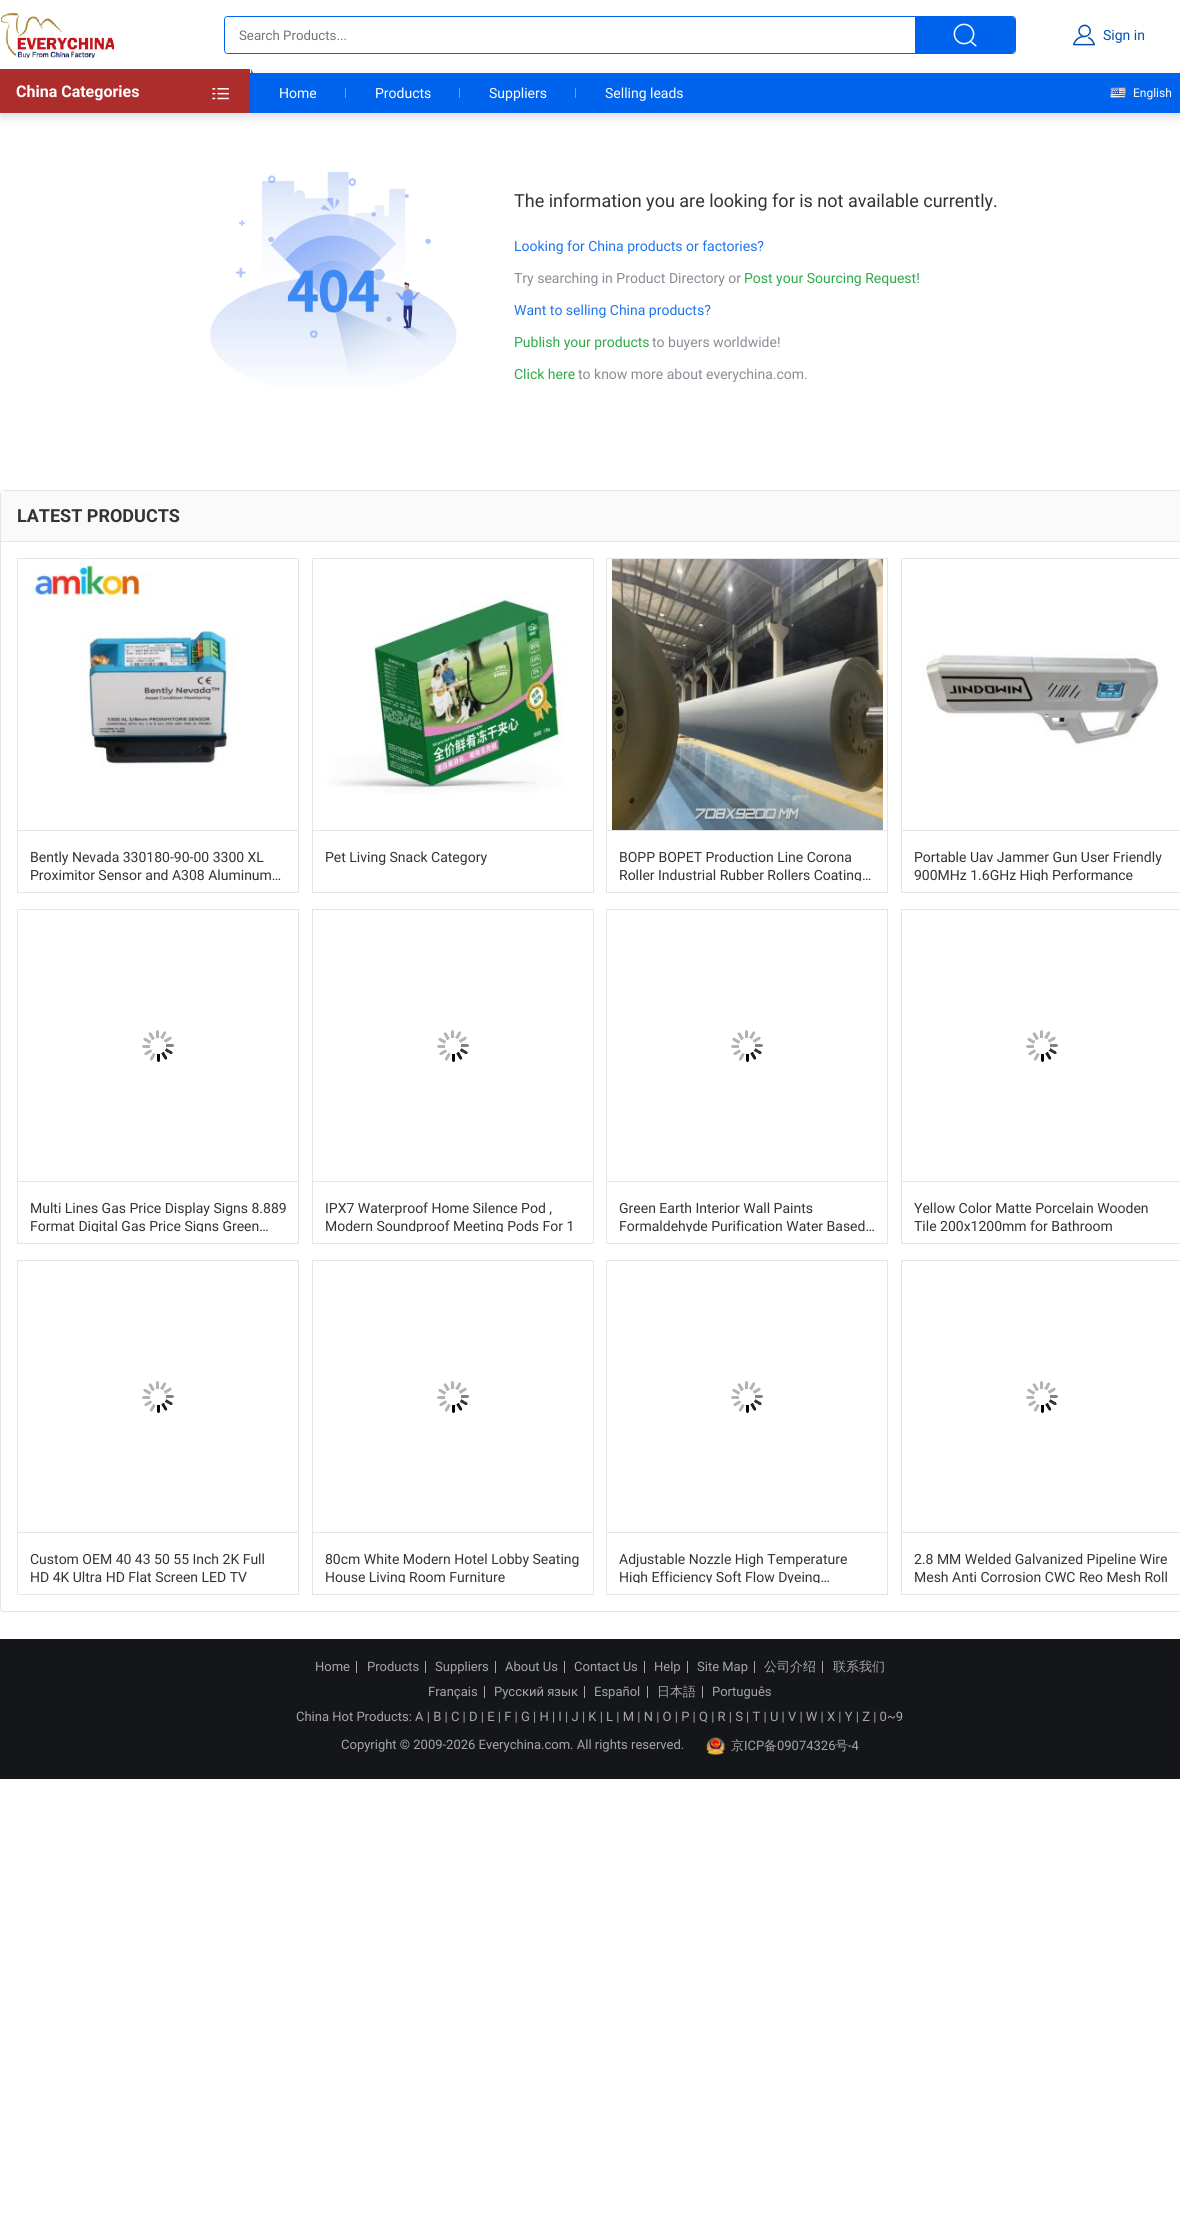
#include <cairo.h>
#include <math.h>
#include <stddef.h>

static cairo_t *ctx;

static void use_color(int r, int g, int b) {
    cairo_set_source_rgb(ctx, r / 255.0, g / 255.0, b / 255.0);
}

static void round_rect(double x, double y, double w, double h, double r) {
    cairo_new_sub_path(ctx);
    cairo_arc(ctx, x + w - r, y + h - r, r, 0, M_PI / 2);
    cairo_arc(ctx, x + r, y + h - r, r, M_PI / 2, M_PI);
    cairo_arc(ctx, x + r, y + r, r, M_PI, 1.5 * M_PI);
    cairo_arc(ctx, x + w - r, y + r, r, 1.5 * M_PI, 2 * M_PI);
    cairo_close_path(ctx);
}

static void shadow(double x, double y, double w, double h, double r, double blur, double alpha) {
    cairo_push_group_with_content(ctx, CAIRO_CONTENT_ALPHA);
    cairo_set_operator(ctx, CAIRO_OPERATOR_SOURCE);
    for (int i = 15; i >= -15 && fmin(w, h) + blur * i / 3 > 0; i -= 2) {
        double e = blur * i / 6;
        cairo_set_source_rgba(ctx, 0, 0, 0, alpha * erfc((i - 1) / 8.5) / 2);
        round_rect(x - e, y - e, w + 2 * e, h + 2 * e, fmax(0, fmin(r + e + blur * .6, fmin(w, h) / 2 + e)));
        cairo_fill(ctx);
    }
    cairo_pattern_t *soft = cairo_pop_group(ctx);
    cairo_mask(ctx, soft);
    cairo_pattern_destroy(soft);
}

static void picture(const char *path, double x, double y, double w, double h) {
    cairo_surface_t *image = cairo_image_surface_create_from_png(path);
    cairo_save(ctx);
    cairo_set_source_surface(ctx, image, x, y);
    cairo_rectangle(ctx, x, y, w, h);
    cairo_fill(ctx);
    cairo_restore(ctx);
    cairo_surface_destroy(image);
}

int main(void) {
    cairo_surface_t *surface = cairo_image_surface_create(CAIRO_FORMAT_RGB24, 1180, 2240);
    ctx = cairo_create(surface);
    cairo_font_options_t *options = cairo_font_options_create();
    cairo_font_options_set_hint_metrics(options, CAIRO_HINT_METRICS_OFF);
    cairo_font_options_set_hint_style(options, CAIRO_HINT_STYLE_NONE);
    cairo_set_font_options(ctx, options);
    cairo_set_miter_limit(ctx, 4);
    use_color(255, 255, 255);
    cairo_paint(ctx);
    picture("img1.png", 1, 13, 113, 45);
    round_rect(224.5, 16.5, 791, 37, 3.5);
    use_color(0, 99, 237);
    cairo_set_line_width(ctx, 1);
    cairo_stroke(ctx);
    use_color(255, 255, 255);
    cairo_new_path(ctx);
    cairo_move_to(ctx, 228, 17);
    cairo_line_to(ctx, 915, 17);
    cairo_line_to(ctx, 915, 53);
    cairo_line_to(ctx, 228, 53);
    cairo_curve_to(ctx, 226.5, 53, 225, 51.5, 225, 50);
    cairo_line_to(ctx, 225, 20);
    cairo_curve_to(ctx, 225, 18.5, 226.5, 17, 228, 17);
    cairo_close_path(ctx);
    cairo_fill(ctx);
    cairo_select_font_face(ctx, "Roboto", CAIRO_FONT_SLANT_NORMAL, CAIRO_FONT_WEIGHT_NORMAL);
    cairo_set_font_size(ctx, 13.25);
    use_color(117, 117, 117);
    cairo_move_to(ctx, 239, 40);
    cairo_show_text(ctx, "Search Products...");
    use_color(0, 99, 237);
    cairo_new_path(ctx);
    cairo_move_to(ctx, 915, 17);
    cairo_line_to(ctx, 1012, 17);
    cairo_curve_to(ctx, 1013.5, 17, 1015, 18.5, 1015, 20);
    cairo_line_to(ctx, 1015, 50);
    cairo_curve_to(ctx, 1015, 51.5, 1013.5, 53, 1012, 53);
    cairo_line_to(ctx, 915, 53);
    cairo_close_path(ctx);
    cairo_fill(ctx);
    picture("img2.png", 953, 23, 24, 24);
    picture("img3.png", 1073, 24, 22, 22);
    cairo_set_font_size(ctx, 14);
    use_color(7, 79, 179);
    cairo_move_to(ctx, 1103, 40);
    cairo_show_text(ctx, "Sign in");
    use_color(4, 30, 66);
    shadow(0, 77, 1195, 40, 0, 5, 0.16);
    use_color(0, 99, 237);
    cairo_rectangle(ctx, 250, 73, 930, 40);
    cairo_fill(ctx);
    use_color(173, 45, 45);
    cairo_rectangle(ctx, 0, 69, 250, 44);
    cairo_fill(ctx);
    use_color(153, 40, 40);
    cairo_new_path(ctx);
    cairo_move_to(ctx, 253, 73);
    cairo_line_to(ctx, 251, 73);
    cairo_line_to(ctx, 252, 71);
    cairo_close_path(ctx);
    cairo_fill(ctx);
    cairo_new_path(ctx);
    cairo_move_to(ctx, 251, 73);
    cairo_line_to(ctx, 251, 69);
    cairo_line_to(ctx, 252, 71);
    cairo_close_path(ctx);
    cairo_fill(ctx);
    cairo_select_font_face(ctx, "Roboto", CAIRO_FONT_SLANT_NORMAL, CAIRO_FONT_WEIGHT_BOLD);
    cairo_set_font_size(ctx, 16);
    use_color(255, 255, 255);
    cairo_move_to(ctx, 16, 97);
    cairo_show_text(ctx, "China Categories");
    picture("img4.png", 212, 88, 17, 12);
    cairo_select_font_face(ctx, "Roboto", CAIRO_FONT_SLANT_NORMAL, CAIRO_FONT_WEIGHT_NORMAL);
    cairo_set_font_size(ctx, 14);
    cairo_move_to(ctx, 279, 98);
    cairo_show_text(ctx, "Home");
    use_color(102, 161, 244);
    cairo_rectangle(ctx, 345, 88, 1, 10);
    cairo_fill(ctx);
    use_color(255, 255, 255);
    cairo_move_to(ctx, 375, 98);
    cairo_show_text(ctx, "Products");
    use_color(102, 161, 244);
    cairo_rectangle(ctx, 459, 88, 1, 10);
    cairo_fill(ctx);
    use_color(255, 255, 255);
    cairo_move_to(ctx, 489, 98);
    cairo_show_text(ctx, "Suppliers");
    use_color(102, 161, 244);
    cairo_rectangle(ctx, 575, 88, 1, 10);
    cairo_fill(ctx);
    use_color(255, 255, 255);
    cairo_move_to(ctx, 605, 98);
    cairo_show_text(ctx, "Selling leads");
    picture("img5.png", 1110, 87, 16, 11);
    cairo_set_font_size(ctx, 12);
    cairo_move_to(ctx, 1133, 97);
    cairo_show_text(ctx, "English");
    picture("img6.png", 210, 172, 247, 213);
    cairo_set_font_size(ctx, 18);
    use_color(51, 51, 51);
    cairo_move_to(ctx, 514, 207);
    cairo_show_text(ctx, "The information you are looking for is not available currently.");
    cairo_set_font_size(ctx, 14);
    use_color(30, 116, 235);
    cairo_move_to(ctx, 514, 251);
    cairo_show_text(ctx, "Looking for China products or factories?");
    use_color(140, 138, 148);
    cairo_move_to(ctx, 514, 283);
    cairo_show_text(ctx, "Try searching in Product Directory or");
    use_color(45, 170, 74);
    cairo_move_to(ctx, 744, 283);
    cairo_show_text(ctx, "Post your Sourcing Request!");
    use_color(30, 116, 235);
    cairo_move_to(ctx, 514, 315);
    cairo_show_text(ctx, "Want to selling China products?");
    use_color(45, 170, 74);
    cairo_move_to(ctx, 514, 347);
    cairo_show_text(ctx, "Publish your products");
    use_color(140, 138, 148);
    cairo_move_to(ctx, 652, 347);
    cairo_show_text(ctx, "to buyers worldwide!");
    use_color(45, 170, 74);
    cairo_move_to(ctx, 514, 379);
    cairo_show_text(ctx, "Click here");
    use_color(140, 138, 148);
    cairo_move_to(ctx, 578, 379);
    cairo_show_text(ctx, "to know more about everychina.com.");
    round_rect(0.5, 490.5, 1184, 1121, 3.5);
    use_color(229, 229, 229);
    cairo_stroke(ctx);
    use_color(250, 250, 250);
    cairo_rectangle(ctx, 1, 491, 1179, 50);
    cairo_fill(ctx);
    use_color(229, 229, 229);
    cairo_rectangle(ctx, 1, 541, 1179, 1);
    cairo_fill(ctx);
    cairo_select_font_face(ctx, "Roboto", CAIRO_FONT_SLANT_NORMAL, CAIRO_FONT_WEIGHT_BOLD);
    cairo_set_font_size(ctx, 18);
    use_color(51, 51, 51);
    cairo_move_to(ctx, 17, 522);
    cairo_show_text(ctx, "LATEST PRODUCTS");
    cairo_rectangle(ctx, 17.5, 558.5, 281, 334);
    use_color(229, 229, 229);
    cairo_stroke(ctx);
    cairo_rectangle(ctx, 18, 830, 280, 1);
    cairo_fill(ctx);
    picture("img7.png", 22, 559, 215, 209);
    cairo_select_font_face(ctx, "Roboto", CAIRO_FONT_SLANT_NORMAL, CAIRO_FONT_WEIGHT_NORMAL);
    cairo_set_font_size(ctx, 14);
    use_color(51, 51, 51);
    cairo_move_to(ctx, 30, 862);
    cairo_show_text(ctx, "Bently Nevada 330180-90-00 3300 XL");
    cairo_move_to(ctx, 30, 880);
    cairo_show_text(ctx, "Proximitor Sensor and A308 Aluminum…");
    cairo_rectangle(ctx, 312.5, 558.5, 281, 334);
    use_color(229, 229, 229);
    cairo_stroke(ctx);
    cairo_rectangle(ctx, 313, 830, 280, 1);
    cairo_fill(ctx);
    picture("img8.png", 327, 592, 236, 201);
    use_color(51, 51, 51);
    cairo_move_to(ctx, 325, 862);
    cairo_show_text(ctx, "Pet Living Snack Category");
    cairo_rectangle(ctx, 606.5, 558.5, 281, 334);
    use_color(229, 229, 229);
    cairo_stroke(ctx);
    cairo_rectangle(ctx, 607, 830, 280, 1);
    cairo_fill(ctx);
    picture("img9.png", 612, 559, 271, 271);
    use_color(51, 51, 51);
    cairo_move_to(ctx, 619, 862);
    cairo_show_text(ctx, "BOPP BOPET Production Line Corona");
    cairo_save(ctx);
    cairo_rectangle(ctx, 619, 848, 257, 33);
    cairo_clip(ctx);
    cairo_move_to(ctx, 619, 880);
    cairo_show_text(ctx, "Roller Industrial Rubber Rollers Coating…");
    cairo_restore(ctx);
    cairo_rectangle(ctx, 901.5, 558.5, 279, 334);
    use_color(229, 229, 229);
    cairo_stroke(ctx);
    cairo_rectangle(ctx, 902, 830, 278, 1);
    cairo_fill(ctx);
    picture("img10.png", 922, 651, 238, 96);
    use_color(51, 51, 51);
    cairo_move_to(ctx, 914, 862);
    cairo_show_text(ctx, "Portable Uav Jammer Gun User Friendly");
    cairo_save(ctx);
    cairo_rectangle(ctx, 914, 848, 257, 33);
    cairo_clip(ctx);
    cairo_move_to(ctx, 914, 880);
    cairo_show_text(ctx, "900MHz 1.6GHz High Performance");
    cairo_restore(ctx);
    cairo_rectangle(ctx, 17.5, 909.5, 281, 334);
    use_color(229, 229, 229);
    cairo_stroke(ctx);
    cairo_rectangle(ctx, 18, 1181, 280, 1);
    cairo_fill(ctx);
    picture("img11.png", 142, 1030, 32, 32);
    use_color(51, 51, 51);
    cairo_move_to(ctx, 30, 1213);
    cairo_show_text(ctx, "Multi Lines Gas Price Display Signs 8.889");
    cairo_save(ctx);
    cairo_rectangle(ctx, 30, 1199, 257, 33);
    cairo_clip(ctx);
    cairo_move_to(ctx, 30, 1231);
    cairo_show_text(ctx, "Format Digital Gas Price Signs Green…");
    cairo_restore(ctx);
    cairo_rectangle(ctx, 312.5, 909.5, 281, 334);
    use_color(229, 229, 229);
    cairo_stroke(ctx);
    cairo_rectangle(ctx, 313, 1181, 280, 1);
    cairo_fill(ctx);
    picture("img11.png", 437, 1030, 32, 32);
    use_color(51, 51, 51);
    cairo_move_to(ctx, 325, 1213);
    cairo_show_text(ctx, "IPX7 Waterproof Home Silence Pod ,");
    cairo_save(ctx);
    cairo_rectangle(ctx, 325, 1199, 257, 33);
    cairo_clip(ctx);
    cairo_move_to(ctx, 325, 1231);
    cairo_show_text(ctx, "Modern Soundproof Meeting Pods For 1");
    cairo_restore(ctx);
    cairo_rectangle(ctx, 606.5, 909.5, 281, 334);
    use_color(229, 229, 229);
    cairo_stroke(ctx);
    cairo_rectangle(ctx, 607, 1181, 280, 1);
    cairo_fill(ctx);
    picture("img11.png", 731, 1030, 32, 32);
    use_color(51, 51, 51);
    cairo_move_to(ctx, 619, 1213);
    cairo_show_text(ctx, "Green Earth Interior Wall Paints");
    cairo_save(ctx);
    cairo_rectangle(ctx, 619, 1199, 257, 33);
    cairo_clip(ctx);
    cairo_move_to(ctx, 619, 1231);
    cairo_show_text(ctx, "Formaldehyde Purification Water Based…");
    cairo_restore(ctx);
    cairo_rectangle(ctx, 901.5, 909.5, 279, 334);
    use_color(229, 229, 229);
    cairo_stroke(ctx);
    cairo_rectangle(ctx, 902, 1181, 278, 1);
    cairo_fill(ctx);
    picture("img11.png", 1026, 1030, 32, 32);
    use_color(51, 51, 51);
    cairo_move_to(ctx, 914, 1213);
    cairo_show_text(ctx, "Yellow Color Matte Porcelain Wooden");
    cairo_move_to(ctx, 914, 1231);
    cairo_show_text(ctx, "Tile 200x1200mm for Bathroom");
    cairo_rectangle(ctx, 17.5, 1260.5, 281, 334);
    use_color(229, 229, 229);
    cairo_stroke(ctx);
    cairo_rectangle(ctx, 18, 1532, 280, 1);
    cairo_fill(ctx);
    picture("img11.png", 142, 1381, 32, 32);
    use_color(51, 51, 51);
    cairo_move_to(ctx, 30, 1564);
    cairo_show_text(ctx, "Custom OEM 40 43 50 55 Inch 2K Full");
    cairo_move_to(ctx, 30, 1582);
    cairo_show_text(ctx, "HD 4K Ultra HD Flat Screen LED TV");
    cairo_rectangle(ctx, 312.5, 1260.5, 281, 334);
    use_color(229, 229, 229);
    cairo_stroke(ctx);
    cairo_rectangle(ctx, 313, 1532, 280, 1);
    cairo_fill(ctx);
    picture("img11.png", 437, 1381, 32, 32);
    use_color(51, 51, 51);
    cairo_move_to(ctx, 325, 1564);
    cairo_show_text(ctx, "80cm White Modern Hotel Lobby Seating");
    cairo_save(ctx);
    cairo_rectangle(ctx, 325, 1550, 257, 33);
    cairo_clip(ctx);
    cairo_move_to(ctx, 325, 1582);
    cairo_show_text(ctx, "House Living Room Furniture");
    cairo_restore(ctx);
    cairo_rectangle(ctx, 606.5, 1260.5, 281, 334);
    use_color(229, 229, 229);
    cairo_stroke(ctx);
    cairo_rectangle(ctx, 607, 1532, 280, 1);
    cairo_fill(ctx);
    picture("img11.png", 731, 1381, 32, 32);
    use_color(51, 51, 51);
    cairo_move_to(ctx, 619, 1564);
    cairo_show_text(ctx, "Adjustable Nozzle High Temperature");
    cairo_save(ctx);
    cairo_rectangle(ctx, 619, 1550, 257, 33);
    cairo_clip(ctx);
    cairo_move_to(ctx, 619, 1582);
    cairo_show_text(ctx, "High Efficiency Soft Flow Dyeing…");
    cairo_restore(ctx);
    cairo_rectangle(ctx, 901.5, 1260.5, 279, 334);
    use_color(229, 229, 229);
    cairo_stroke(ctx);
    cairo_rectangle(ctx, 902, 1532, 278, 1);
    cairo_fill(ctx);
    picture("img11.png", 1026, 1381, 32, 32);
    use_color(51, 51, 51);
    cairo_move_to(ctx, 914, 1564);
    cairo_show_text(ctx, "2.8 MM Welded Galvanized Pipeline Wire");
    cairo_move_to(ctx, 914, 1582);
    cairo_show_text(ctx, "Mesh Anti Corrosion CWC Reo Mesh Roll");
    use_color(20, 22, 26);
    cairo_rectangle(ctx, 0, 1639, 1180, 140);
    cairo_fill(ctx);
    use_color(166, 166, 166);
    cairo_rectangle(ctx, 356, 1661, 1, 12);
    cairo_fill(ctx);
    cairo_set_font_size(ctx, 13);
    cairo_move_to(ctx, 315, 1671);
    cairo_show_text(ctx, "Home");
    cairo_rectangle(ctx, 425, 1661, 1, 12);
    cairo_fill(ctx);
    cairo_move_to(ctx, 367, 1671);
    cairo_show_text(ctx, "Products");
    cairo_rectangle(ctx, 495, 1661, 1, 12);
    cairo_fill(ctx);
    cairo_move_to(ctx, 435, 1671);
    cairo_show_text(ctx, "Suppliers");
    cairo_rectangle(ctx, 564, 1661, 1, 12);
    cairo_fill(ctx);
    cairo_move_to(ctx, 505, 1671);
    cairo_show_text(ctx, "About Us");
    cairo_rectangle(ctx, 644, 1661, 1, 12);
    cairo_fill(ctx);
    cairo_move_to(ctx, 574, 1671);
    cairo_show_text(ctx, "Contact Us");
    cairo_rectangle(ctx, 687, 1661, 1, 12);
    cairo_fill(ctx);
    cairo_move_to(ctx, 654, 1671);
    cairo_show_text(ctx, "Help");
    cairo_rectangle(ctx, 754, 1661, 1, 12);
    cairo_fill(ctx);
    cairo_move_to(ctx, 697, 1671);
    cairo_show_text(ctx, "Site Map");
    cairo_rectangle(ctx, 822, 1661, 1, 12);
    cairo_fill(ctx);
    cairo_select_font_face(ctx, "WenQuanYi Zen Hei Medium", CAIRO_FONT_SLANT_NORMAL, CAIRO_FONT_WEIGHT_NORMAL);
    cairo_move_to(ctx, 764, 1671);
    cairo_show_text(ctx, "公司介绍");
    cairo_move_to(ctx, 833, 1671);
    cairo_show_text(ctx, "联系我们");
    cairo_rectangle(ctx, 484, 1686, 1, 12);
    cairo_fill(ctx);
    cairo_select_font_face(ctx, "Roboto", CAIRO_FONT_SLANT_NORMAL, CAIRO_FONT_WEIGHT_NORMAL);
    cairo_move_to(ctx, 428, 1696);
    cairo_show_text(ctx, "Français");
    cairo_rectangle(ctx, 584, 1686, 1, 12);
    cairo_fill(ctx);
    cairo_move_to(ctx, 494, 1696);
    cairo_show_text(ctx, "Русский язык");
    cairo_rectangle(ctx, 647, 1686, 1, 12);
    cairo_fill(ctx);
    cairo_move_to(ctx, 594, 1696);
    cairo_show_text(ctx, "Español");
    cairo_rectangle(ctx, 702, 1686, 1, 12);
    cairo_fill(ctx);
    cairo_select_font_face(ctx, "WenQuanYi Zen Hei Medium", CAIRO_FONT_SLANT_NORMAL, CAIRO_FONT_WEIGHT_NORMAL);
    cairo_move_to(ctx, 657, 1696);
    cairo_show_text(ctx, "日本語");
    cairo_select_font_face(ctx, "Roboto", CAIRO_FONT_SLANT_NORMAL, CAIRO_FONT_WEIGHT_NORMAL);
    cairo_move_to(ctx, 712, 1696);
    cairo_show_text(ctx, "Português");
    cairo_move_to(ctx, 296, 1721);
    cairo_show_text(ctx, "China Hot Products: A | B | C | D | E | F | G | H | I | J | K | L | M | N | O | P | Q | R | S | T | U | V | W | X | Y | Z | 0~9");
    cairo_move_to(ctx, 341, 1749);
    cairo_show_text(ctx, "Copyright © 2009-2026 Everychina.com. All rights reserved.");
    picture("img12.png", 706, 1737, 19, 18);
    cairo_select_font_face(ctx, "WenQuanYi Zen Hei Medium", CAIRO_FONT_SLANT_NORMAL, CAIRO_FONT_WEIGHT_NORMAL);
    cairo_move_to(ctx, 731, 1750);
    cairo_show_text(ctx, "京");
    cairo_select_font_face(ctx, "Roboto", CAIRO_FONT_SLANT_NORMAL, CAIRO_FONT_WEIGHT_NORMAL);
    cairo_move_to(ctx, 744, 1750);
    cairo_show_text(ctx, "ICP");
    cairo_select_font_face(ctx, "WenQuanYi Zen Hei Medium", CAIRO_FONT_SLANT_NORMAL, CAIRO_FONT_WEIGHT_NORMAL);
    cairo_move_to(ctx, 764, 1750);
    cairo_show_text(ctx, "备");
    cairo_select_font_face(ctx, "Roboto", CAIRO_FONT_SLANT_NORMAL, CAIRO_FONT_WEIGHT_NORMAL);
    cairo_move_to(ctx, 777, 1750);
    cairo_show_text(ctx, "09074326");
    cairo_select_font_face(ctx, "WenQuanYi Zen Hei Medium", CAIRO_FONT_SLANT_NORMAL, CAIRO_FONT_WEIGHT_NORMAL);
    cairo_move_to(ctx, 835, 1750);
    cairo_show_text(ctx, "号");
    cairo_select_font_face(ctx, "Roboto", CAIRO_FONT_SLANT_NORMAL, CAIRO_FONT_WEIGHT_NORMAL);
    cairo_move_to(ctx, 848, 1750);
    cairo_show_text(ctx, "-4");
    cairo_surface_write_to_png(surface, "result.png");
    cairo_font_options_destroy(options);
    cairo_destroy(ctx);
    cairo_surface_destroy(surface);
    return 0;
}
